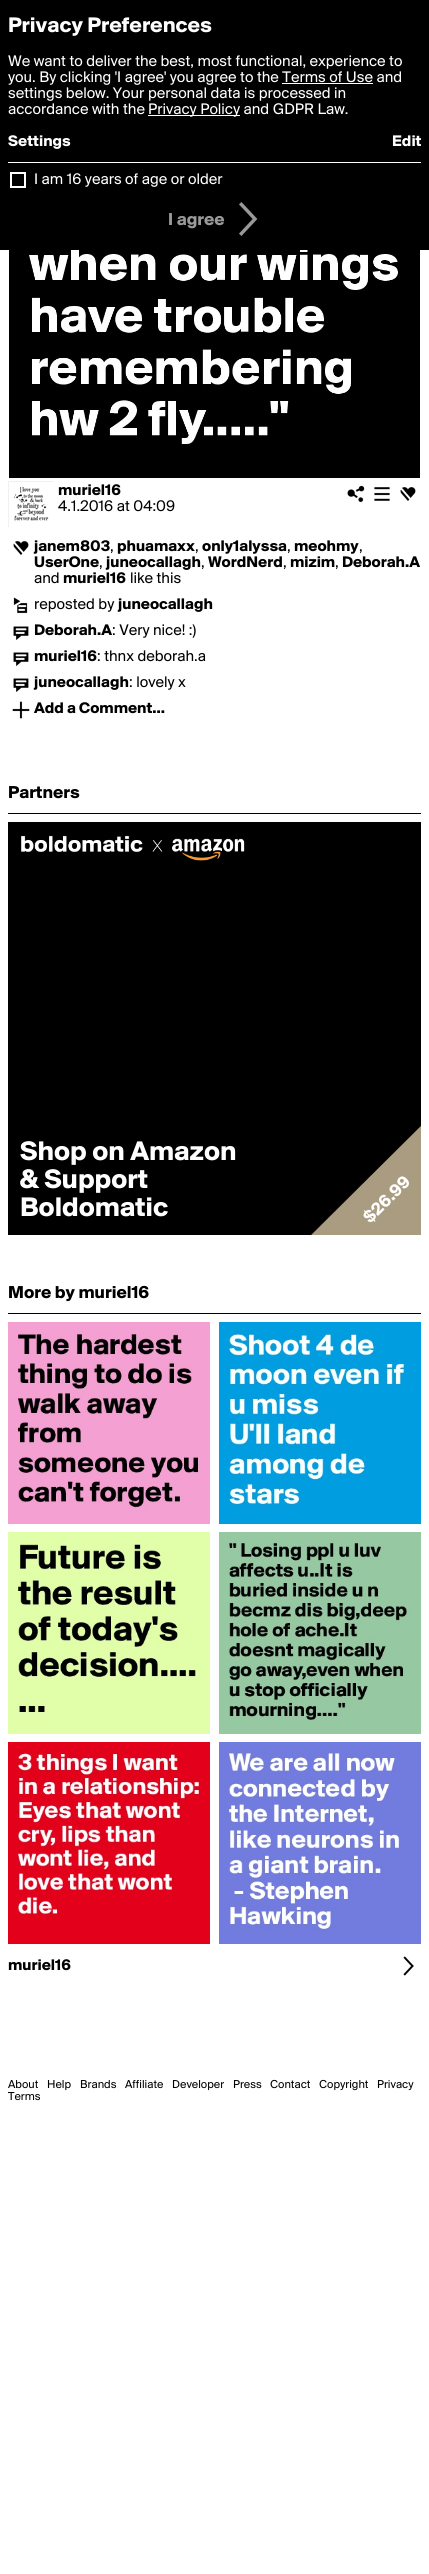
#include <cairo.h>
#include <math.h>
#include <stddef.h>

static cairo_t *ctx;

static void use_color(int r, int g, int b) {
    cairo_set_source_rgb(ctx, r / 255.0, g / 255.0, b / 255.0);
}

static void picture(const char *path, double x, double y, double w, double h) {
    cairo_surface_t *image = cairo_image_surface_create_from_png(path);
    cairo_save(ctx);
    cairo_set_source_surface(ctx, image, x, y);
    cairo_rectangle(ctx, x, y, w, h);
    cairo_fill(ctx);
    cairo_restore(ctx);
    cairo_surface_destroy(image);
}

int main(void) {
    cairo_surface_t *surface = cairo_image_surface_create(CAIRO_FORMAT_RGB24, 429, 2574);
    ctx = cairo_create(surface);
    cairo_font_options_t *options = cairo_font_options_create();
    cairo_font_options_set_hint_metrics(options, CAIRO_HINT_METRICS_OFF);
    cairo_font_options_set_hint_style(options, CAIRO_HINT_STYLE_NONE);
    cairo_set_font_options(ctx, options);
    cairo_set_miter_limit(ctx, 4);
    use_color(255, 255, 255);
    cairo_paint(ctx);
    use_color(0, 0, 0);
    cairo_rectangle(ctx, 0, 0, 429, 250);
    cairo_fill(ctx);
    cairo_select_font_face(ctx, "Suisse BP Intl", CAIRO_FONT_SLANT_NORMAL, CAIRO_FONT_WEIGHT_BOLD);
    cairo_set_font_size(ctx, 22);
    use_color(255, 255, 255);
    cairo_move_to(ctx, 8, 32);
    cairo_show_text(ctx, "Privacy Preferences");
    cairo_select_font_face(ctx, "Suisse BP Intl", CAIRO_FONT_SLANT_NORMAL, CAIRO_FONT_WEIGHT_NORMAL);
    cairo_set_font_size(ctx, 16);
    cairo_move_to(ctx, 8, 66);
    cairo_show_text(ctx, "We want to deliver the best, most functional, experience to");
    cairo_move_to(ctx, 8, 82);
    cairo_show_text(ctx, "you. By clicking 'I agree' you agree to the Terms of Use and");
    cairo_rectangle(ctx, 282, 83, 91, 1);
    cairo_fill(ctx);
    cairo_move_to(ctx, 8, 98);
    cairo_show_text(ctx, "settings below. Your personal data is processed in");
    cairo_move_to(ctx, 8, 114);
    cairo_show_text(ctx, "accordance with the");
    cairo_rectangle(ctx, 148, 115, 92, 1);
    cairo_fill(ctx);
    cairo_move_to(ctx, 148, 114);
    cairo_show_text(ctx, "Privacy Policy and GDPR Law.");
    cairo_select_font_face(ctx, "Suisse BP Intl", CAIRO_FONT_SLANT_NORMAL, CAIRO_FONT_WEIGHT_BOLD);
    cairo_move_to(ctx, 8, 146);
    cairo_show_text(ctx, "Settings");
    cairo_move_to(ctx, 392, 146);
    cairo_show_text(ctx, "Edit");
    cairo_rectangle(ctx, 8, 162, 413, 1);
    cairo_fill(ctx);
    cairo_rectangle(ctx, 11, 173, 14, 14);
    cairo_stroke(ctx);
    cairo_select_font_face(ctx, "Suisse BP Intl", CAIRO_FONT_SLANT_NORMAL, CAIRO_FONT_WEIGHT_NORMAL);
    cairo_move_to(ctx, 34, 184);
    cairo_show_text(ctx, "I am 16 years of age or older");
    cairo_select_font_face(ctx, "Suisse BP Intl", CAIRO_FONT_SLANT_NORMAL, CAIRO_FONT_WEIGHT_BOLD);
    cairo_set_font_size(ctx, 18);
    use_color(153, 153, 153);
    cairo_move_to(ctx, 168, 225);
    cairo_show_text(ctx, "I agree");
    picture("img1.png", 239, 202, 19, 34);
    picture("img2.png", 9, 250, 411, 228);
    picture("img3.png", 8, 481, 46, 46);
    cairo_set_font_size(ctx, 16);
    use_color(0, 0, 0);
    cairo_move_to(ctx, 58, 495);
    cairo_show_text(ctx, "muriel16");
    cairo_select_font_face(ctx, "Suisse BP Intl", CAIRO_FONT_SLANT_NORMAL, CAIRO_FONT_WEIGHT_NORMAL);
    cairo_move_to(ctx, 58, 511);
    cairo_show_text(ctx, "4.1.2016 at 04:09");
    picture("img4.png", 347, 485, 18, 18);
    picture("img5.png", 374, 487, 16, 14);
    picture("img6.png", 400, 487, 16, 14);
    picture("img6.png", 13, 541, 16, 14);
    cairo_select_font_face(ctx, "Suisse BP Intl", CAIRO_FONT_SLANT_NORMAL, CAIRO_FONT_WEIGHT_BOLD);
    cairo_move_to(ctx, 34, 551);
    cairo_show_text(ctx, "janem803");
    cairo_select_font_face(ctx, "Suisse BP Intl", CAIRO_FONT_SLANT_NORMAL, CAIRO_FONT_WEIGHT_NORMAL);
    cairo_move_to(ctx, 110, 551);
    cairo_show_text(ctx, ",");
    cairo_select_font_face(ctx, "Suisse BP Intl", CAIRO_FONT_SLANT_NORMAL, CAIRO_FONT_WEIGHT_BOLD);
    cairo_move_to(ctx, 117, 551);
    cairo_show_text(ctx, "phuamaxx");
    cairo_select_font_face(ctx, "Suisse BP Intl", CAIRO_FONT_SLANT_NORMAL, CAIRO_FONT_WEIGHT_NORMAL);
    cairo_move_to(ctx, 195, 551);
    cairo_show_text(ctx, ",");
    cairo_select_font_face(ctx, "Suisse BP Intl", CAIRO_FONT_SLANT_NORMAL, CAIRO_FONT_WEIGHT_BOLD);
    cairo_move_to(ctx, 202, 551);
    cairo_show_text(ctx, "only1alyssa");
    cairo_select_font_face(ctx, "Suisse BP Intl", CAIRO_FONT_SLANT_NORMAL, CAIRO_FONT_WEIGHT_NORMAL);
    cairo_move_to(ctx, 287, 551);
    cairo_show_text(ctx, ",");
    cairo_select_font_face(ctx, "Suisse BP Intl", CAIRO_FONT_SLANT_NORMAL, CAIRO_FONT_WEIGHT_BOLD);
    cairo_move_to(ctx, 294, 551);
    cairo_show_text(ctx, "meohmy");
    cairo_select_font_face(ctx, "Suisse BP Intl", CAIRO_FONT_SLANT_NORMAL, CAIRO_FONT_WEIGHT_NORMAL);
    cairo_move_to(ctx, 359, 551);
    cairo_show_text(ctx, ",");
    cairo_select_font_face(ctx, "Suisse BP Intl", CAIRO_FONT_SLANT_NORMAL, CAIRO_FONT_WEIGHT_BOLD);
    cairo_move_to(ctx, 34, 567);
    cairo_show_text(ctx, "UserOne");
    cairo_select_font_face(ctx, "Suisse BP Intl", CAIRO_FONT_SLANT_NORMAL, CAIRO_FONT_WEIGHT_NORMAL);
    cairo_move_to(ctx, 99, 567);
    cairo_show_text(ctx, ",");
    cairo_select_font_face(ctx, "Suisse BP Intl", CAIRO_FONT_SLANT_NORMAL, CAIRO_FONT_WEIGHT_BOLD);
    cairo_move_to(ctx, 106, 567);
    cairo_show_text(ctx, "juneocallagh");
    cairo_select_font_face(ctx, "Suisse BP Intl", CAIRO_FONT_SLANT_NORMAL, CAIRO_FONT_WEIGHT_NORMAL);
    cairo_move_to(ctx, 201, 567);
    cairo_show_text(ctx, ",");
    cairo_select_font_face(ctx, "Suisse BP Intl", CAIRO_FONT_SLANT_NORMAL, CAIRO_FONT_WEIGHT_BOLD);
    cairo_move_to(ctx, 208, 567);
    cairo_show_text(ctx, "WordNerd");
    cairo_select_font_face(ctx, "Suisse BP Intl", CAIRO_FONT_SLANT_NORMAL, CAIRO_FONT_WEIGHT_NORMAL);
    cairo_move_to(ctx, 283, 567);
    cairo_show_text(ctx, ",");
    cairo_select_font_face(ctx, "Suisse BP Intl", CAIRO_FONT_SLANT_NORMAL, CAIRO_FONT_WEIGHT_BOLD);
    cairo_move_to(ctx, 290, 567);
    cairo_show_text(ctx, "mizim");
    cairo_select_font_face(ctx, "Suisse BP Intl", CAIRO_FONT_SLANT_NORMAL, CAIRO_FONT_WEIGHT_NORMAL);
    cairo_move_to(ctx, 335, 567);
    cairo_show_text(ctx, ",");
    cairo_select_font_face(ctx, "Suisse BP Intl", CAIRO_FONT_SLANT_NORMAL, CAIRO_FONT_WEIGHT_BOLD);
    cairo_move_to(ctx, 342, 567);
    cairo_show_text(ctx, "Deborah.A");
    cairo_select_font_face(ctx, "Suisse BP Intl", CAIRO_FONT_SLANT_NORMAL, CAIRO_FONT_WEIGHT_NORMAL);
    cairo_move_to(ctx, 34, 583);
    cairo_show_text(ctx, "and");
    cairo_select_font_face(ctx, "Suisse BP Intl", CAIRO_FONT_SLANT_NORMAL, CAIRO_FONT_WEIGHT_BOLD);
    cairo_move_to(ctx, 63, 583);
    cairo_show_text(ctx, "muriel16");
    cairo_select_font_face(ctx, "Suisse BP Intl", CAIRO_FONT_SLANT_NORMAL, CAIRO_FONT_WEIGHT_NORMAL);
    cairo_move_to(ctx, 130, 583);
    cairo_show_text(ctx, "like this");
    picture("img7.png", 13, 597, 15, 17);
    cairo_move_to(ctx, 34, 609);
    cairo_show_text(ctx, "reposted by");
    cairo_select_font_face(ctx, "Suisse BP Intl", CAIRO_FONT_SLANT_NORMAL, CAIRO_FONT_WEIGHT_BOLD);
    cairo_move_to(ctx, 118, 609);
    cairo_show_text(ctx, "juneocallagh");
    picture("img8.png", 13, 626, 16, 14);
    cairo_move_to(ctx, 34, 635);
    cairo_show_text(ctx, "Deborah.A");
    cairo_select_font_face(ctx, "Suisse BP Intl", CAIRO_FONT_SLANT_NORMAL, CAIRO_FONT_WEIGHT_NORMAL);
    cairo_move_to(ctx, 112, 635);
    cairo_show_text(ctx, ": Very nice! :)");
    picture("img8.png", 13, 652, 16, 14);
    cairo_select_font_face(ctx, "Suisse BP Intl", CAIRO_FONT_SLANT_NORMAL, CAIRO_FONT_WEIGHT_BOLD);
    cairo_move_to(ctx, 34, 661);
    cairo_show_text(ctx, "muriel16");
    cairo_select_font_face(ctx, "Suisse BP Intl", CAIRO_FONT_SLANT_NORMAL, CAIRO_FONT_WEIGHT_NORMAL);
    cairo_move_to(ctx, 97, 661);
    cairo_show_text(ctx, ": thnx deborah.a");
    picture("img8.png", 13, 678, 16, 14);
    cairo_select_font_face(ctx, "Suisse BP Intl", CAIRO_FONT_SLANT_NORMAL, CAIRO_FONT_WEIGHT_BOLD);
    cairo_move_to(ctx, 34, 687);
    cairo_show_text(ctx, "juneocallagh");
    cairo_select_font_face(ctx, "Suisse BP Intl", CAIRO_FONT_SLANT_NORMAL, CAIRO_FONT_WEIGHT_NORMAL);
    cairo_move_to(ctx, 129, 687);
    cairo_show_text(ctx, ": lovely x");
    picture("img9.png", 12, 701, 18, 18);
    cairo_select_font_face(ctx, "Suisse BP Intl", CAIRO_FONT_SLANT_NORMAL, CAIRO_FONT_WEIGHT_BOLD);
    cairo_move_to(ctx, 34, 713);
    cairo_show_text(ctx, "Add a Comment...");
    cairo_rectangle(ctx, 8, 813, 413, 1);
    cairo_fill(ctx);
    cairo_set_font_size(ctx, 18);
    cairo_move_to(ctx, 8, 798);
    cairo_show_text(ctx, "Partners");
    cairo_rectangle(ctx, 8, 822, 413, 413);
    cairo_fill(ctx);
    picture("img10.png", 21, 835, 224, 26);
    cairo_set_font_size(ctx, 28);
    use_color(255, 255, 255);
    cairo_move_to(ctx, 20, 1160);
    cairo_show_text(ctx, "Shop on Amazon");
    cairo_move_to(ctx, 20, 1188);
    cairo_show_text(ctx, "& Support");
    cairo_move_to(ctx, 20, 1216);
    cairo_show_text(ctx, "Boldomatic");
    cairo_save(ctx);
    cairo_rectangle(ctx, 8, 822, 413, 413);
    cairo_clip(ctx);
    use_color(170, 156, 129);
    cairo_new_path(ctx);
    cairo_move_to(ctx, 297, 1249);
    cairo_line_to(ctx, 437, 1110);
    cairo_line_to(ctx, 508, 1181);
    cairo_line_to(ctx, 368, 1320);
    cairo_close_path(ctx);
    cairo_fill(ctx);
    cairo_restore(ctx);
    cairo_set_font_size(ctx, 18);
    cairo_save(ctx);
    cairo_translate(ctx, 370, 1224);
    cairo_rotate(ctx, -45 * M_PI / 180);
    cairo_move_to(ctx, 0, 0);
    cairo_show_text(ctx, "$26.99");
    cairo_restore(ctx);
    use_color(0, 0, 0);
    cairo_rectangle(ctx, 8, 1313, 413, 1);
    cairo_fill(ctx);
    cairo_move_to(ctx, 8, 1298);
    cairo_show_text(ctx, "More by muriel16");
    picture("img11.png", 8, 1322, 202, 202);
    picture("img12.png", 219, 1322, 202, 202);
    picture("img13.png", 8, 1532, 202, 202);
    picture("img14.png", 219, 1532, 202, 202);
    picture("img15.png", 8, 1742, 202, 202);
    picture("img16.png", 219, 1742, 202, 202);
    cairo_set_font_size(ctx, 16);
    cairo_move_to(ctx, 8, 1970);
    cairo_show_text(ctx, "muriel16");
    picture("img17.png", 403, 1956, 11, 20);
    cairo_select_font_face(ctx, "Suisse BP Intl", CAIRO_FONT_SLANT_NORMAL, CAIRO_FONT_WEIGHT_NORMAL);
    cairo_set_font_size(ctx, 12);
    cairo_move_to(ctx, 8, 2088);
    cairo_show_text(ctx, "About");
    cairo_move_to(ctx, 47, 2088);
    cairo_show_text(ctx, "Help");
    cairo_move_to(ctx, 80, 2088);
    cairo_show_text(ctx, "Brands");
    cairo_move_to(ctx, 125, 2088);
    cairo_show_text(ctx, "Affiliate");
    cairo_move_to(ctx, 172, 2088);
    cairo_show_text(ctx, "Developer");
    cairo_move_to(ctx, 233, 2088);
    cairo_show_text(ctx, "Press");
    cairo_move_to(ctx, 270, 2088);
    cairo_show_text(ctx, "Contact");
    cairo_move_to(ctx, 319, 2088);
    cairo_show_text(ctx, "Copyright");
    cairo_move_to(ctx, 377, 2088);
    cairo_show_text(ctx, "Privacy");
    cairo_move_to(ctx, 8, 2100);
    cairo_show_text(ctx, "Terms");
    cairo_surface_write_to_png(surface, "result.png");
    cairo_font_options_destroy(options);
    cairo_destroy(ctx);
    cairo_surface_destroy(surface);
    return 0;
}
